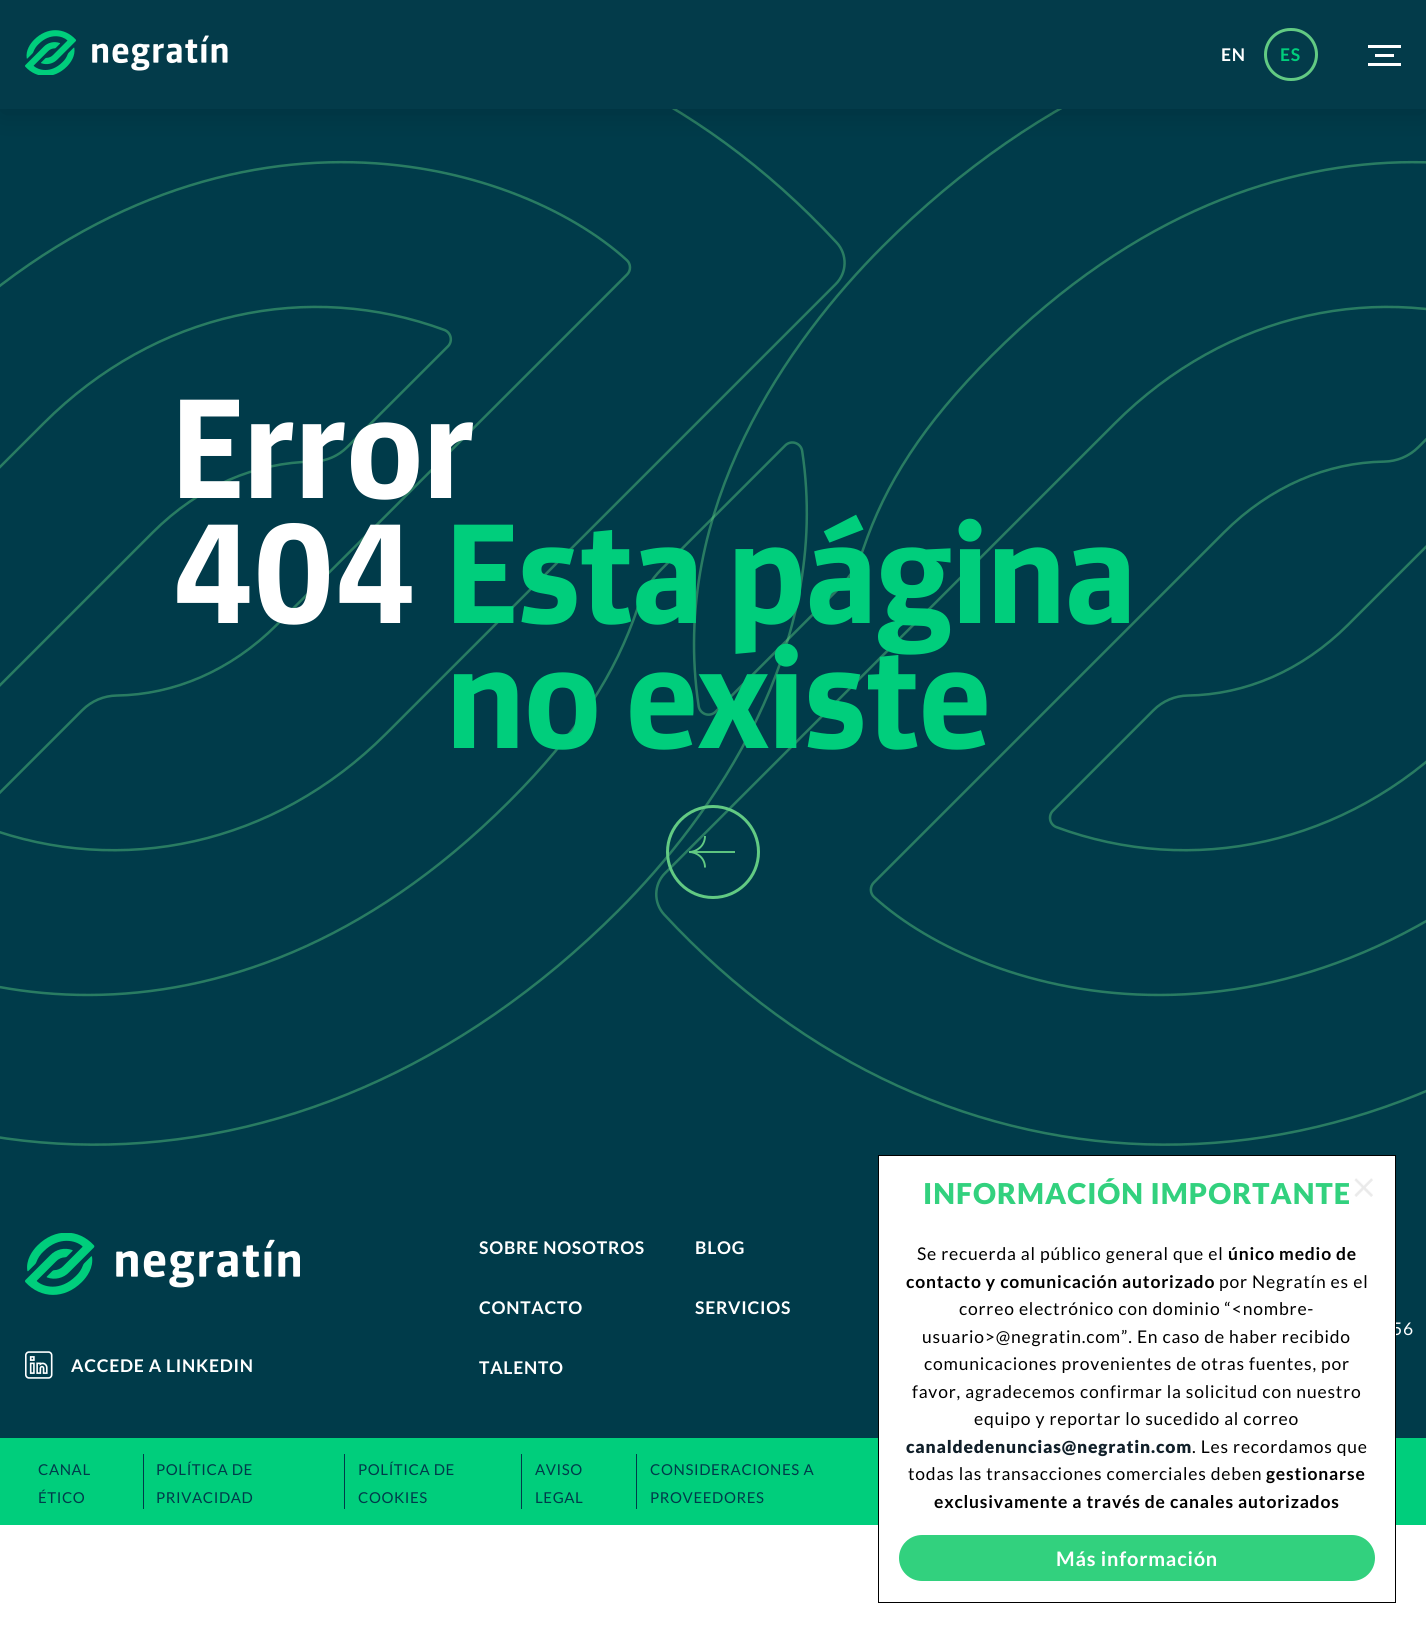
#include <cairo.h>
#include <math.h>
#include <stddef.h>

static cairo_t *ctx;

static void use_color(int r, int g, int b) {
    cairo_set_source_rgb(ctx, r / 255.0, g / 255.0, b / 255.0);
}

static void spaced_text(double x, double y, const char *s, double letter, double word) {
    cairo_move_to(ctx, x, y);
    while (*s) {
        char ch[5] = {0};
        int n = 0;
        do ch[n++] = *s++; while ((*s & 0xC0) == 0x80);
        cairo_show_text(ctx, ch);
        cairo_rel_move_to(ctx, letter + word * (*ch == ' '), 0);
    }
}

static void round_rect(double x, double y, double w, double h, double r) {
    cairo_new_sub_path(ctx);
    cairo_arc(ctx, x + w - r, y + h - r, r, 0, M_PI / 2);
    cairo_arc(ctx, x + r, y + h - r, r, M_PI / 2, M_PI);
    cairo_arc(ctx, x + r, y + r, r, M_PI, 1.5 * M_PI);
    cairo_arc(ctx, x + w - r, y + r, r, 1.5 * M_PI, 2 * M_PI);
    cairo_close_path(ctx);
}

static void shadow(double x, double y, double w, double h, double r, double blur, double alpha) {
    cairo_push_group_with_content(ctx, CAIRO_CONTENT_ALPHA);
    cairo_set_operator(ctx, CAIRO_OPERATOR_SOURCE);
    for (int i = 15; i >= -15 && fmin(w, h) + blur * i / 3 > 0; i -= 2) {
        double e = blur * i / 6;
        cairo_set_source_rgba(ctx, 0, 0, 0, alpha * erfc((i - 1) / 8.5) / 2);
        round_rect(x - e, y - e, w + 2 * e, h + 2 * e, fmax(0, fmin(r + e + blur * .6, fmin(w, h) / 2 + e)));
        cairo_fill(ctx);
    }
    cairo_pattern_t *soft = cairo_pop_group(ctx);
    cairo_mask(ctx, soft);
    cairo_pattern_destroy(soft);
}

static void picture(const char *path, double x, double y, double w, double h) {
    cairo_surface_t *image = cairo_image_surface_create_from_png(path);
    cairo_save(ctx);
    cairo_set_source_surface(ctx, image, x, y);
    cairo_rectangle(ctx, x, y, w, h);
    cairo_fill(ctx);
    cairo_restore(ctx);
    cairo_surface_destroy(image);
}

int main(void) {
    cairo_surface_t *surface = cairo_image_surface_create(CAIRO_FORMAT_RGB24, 1426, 1632);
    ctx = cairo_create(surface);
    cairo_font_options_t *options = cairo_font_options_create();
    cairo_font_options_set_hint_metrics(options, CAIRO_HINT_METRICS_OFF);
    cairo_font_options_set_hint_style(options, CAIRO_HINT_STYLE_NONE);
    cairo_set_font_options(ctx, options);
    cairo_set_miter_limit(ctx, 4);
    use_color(255, 255, 255);
    cairo_paint(ctx);
    use_color(0, 59, 74);
    cairo_rectangle(ctx, 0, 109, 1426, 1329);
    cairo_fill(ctx);
    picture("img2.png", 0, 109, 846, 1037);
    picture("img3.png", 655, 109, 771, 1037);
    use_color(0, 0, 0);
    shadow(0, 4, 1426, 109, 0, 15.5, 0.16);
    use_color(3, 59, 74);
    cairo_rectangle(ctx, 0, 0, 1426, 109);
    cairo_fill(ctx);
    picture("img1.png", 25, 30, 203, 45);
    cairo_select_font_face(ctx, "Lato", CAIRO_FONT_SLANT_NORMAL, CAIRO_FONT_WEIGHT_BOLD);
    cairo_set_font_size(ctx, 17.5);
    use_color(255, 255, 255);
    spaced_text(1221, 61, "EN", 0.75, 0);
    round_rect(1265.5, 29.5, 51, 50, 25);
    use_color(98, 202, 131);
    cairo_set_line_width(ctx, 3);
    cairo_stroke(ctx);
    use_color(0, 206, 124);
    spaced_text(1280, 61, "ES", 0.75, 0);
    use_color(255, 255, 255);
    cairo_rectangle(ctx, 1368, 45, 33, 3);
    cairo_fill(ctx);
    cairo_rectangle(ctx, 1375, 54, 19, 3);
    cairo_fill(ctx);
    cairo_rectangle(ctx, 1368, 63, 33, 3);
    cairo_fill(ctx);
    cairo_select_font_face(ctx, "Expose", CAIRO_FONT_SLANT_NORMAL, CAIRO_FONT_WEIGHT_BOLD);
    cairo_set_font_size(ctx, 142.5);
    spaced_text(173, 498, "Error", 1.5, 0);
    spaced_text(173, 623, "404", 1.5, 0);
    use_color(0, 206, 124);
    spaced_text(447, 623, "Esta página", 1, 0);
    spaced_text(447, 748, "no existe", 1, 0);
    cairo_new_path(ctx);
    cairo_arc(ctx, 713, 852, 45.5, 0, 2 * M_PI);
    use_color(98, 202, 131);
    cairo_stroke(ctx);
    use_color(93, 195, 128);
    cairo_rectangle(ctx, 689, 851, 46, 2);
    cairo_fill(ctx);
    cairo_new_path(ctx);
    cairo_move_to(ctx, 689, 852);
    cairo_curve_to(ctx, 696.5, 852, 705, 846, 705, 836);
    cairo_move_to(ctx, 689, 852);
    cairo_curve_to(ctx, 696.5, 852, 705, 857.5, 705, 867.5);
    use_color(98, 202, 131);
    cairo_set_line_width(ctx, 1.9);
    cairo_stroke(ctx);
    cairo_select_font_face(ctx, "Lato", CAIRO_FONT_SLANT_NORMAL, CAIRO_FONT_WEIGHT_BOLD);
    cairo_set_font_size(ctx, 17.5);
    use_color(255, 255, 255);
    spaced_text(479, 1254, "SOBRE NOSOTROS", 0.75, 0);
    spaced_text(695, 1254, "BLOG", 0.75, 0);
    spaced_text(479, 1314, "CONTACTO", 0.75, 0);
    spaced_text(695, 1314, "SERVICIOS", 0.75, 0);
    spaced_text(479, 1374, "TALENTO", 0.75, 0);
    cairo_select_font_face(ctx, "Lato", CAIRO_FONT_SLANT_NORMAL, CAIRO_FONT_WEIGHT_NORMAL);
    spaced_text(1392, 1335, "56", 0.8, 0);
    picture("img4.png", 25, 1233, 275, 62);
    picture("img5.png", 25, 1351, 28, 28);
    cairo_select_font_face(ctx, "Lato", CAIRO_FONT_SLANT_NORMAL, CAIRO_FONT_WEIGHT_BOLD);
    spaced_text(71, 1372, "ACCEDE A LINKEDIN", 0.75, 0);
    use_color(0, 206, 124);
    cairo_rectangle(ctx, 0, 1438, 1426, 87);
    cairo_fill(ctx);
    use_color(0, 59, 74);
    cairo_rectangle(ctx, 143, 1454, 1, 55);
    cairo_fill(ctx);
    cairo_select_font_face(ctx, "Lato", CAIRO_FONT_SLANT_NORMAL, CAIRO_FONT_WEIGHT_NORMAL);
    cairo_set_font_size(ctx, 15);
    spaced_text(38, 1475, "CANAL", 0.6, 0);
    spaced_text(38, 1503, "ÉTICO", 0.6, 0);
    cairo_rectangle(ctx, 344, 1454, 1, 55);
    cairo_fill(ctx);
    spaced_text(156, 1475, "POLÍTICA DE", 0.6, 0);
    spaced_text(156, 1503, "PRIVACIDAD", 0.6, 0);
    cairo_rectangle(ctx, 521, 1454, 1, 55);
    cairo_fill(ctx);
    spaced_text(358, 1475, "POLÍTICA DE", 0.6, 0);
    spaced_text(358, 1503, "COOKIES", 0.6, 0);
    cairo_rectangle(ctx, 636, 1454, 1, 55);
    cairo_fill(ctx);
    spaced_text(535, 1475, "AVISO", 0.6, 0);
    spaced_text(535, 1503, "LEGAL", 0.6, 0);
    spaced_text(650, 1475, "CONSIDERACIONES A", 0.6, 0);
    spaced_text(650, 1503, "PROVEEDORES", 0.6, 0);
    use_color(255, 255, 255);
    cairo_rectangle(ctx, 879, 1156, 516, 369);
    cairo_fill(ctx);
    cairo_rectangle(ctx, 878.5, 1155.5, 517, 447);
    use_color(0, 0, 0);
    cairo_set_line_width(ctx, 1);
    cairo_stroke(ctx);
    cairo_select_font_face(ctx, "Lato Black", CAIRO_FONT_SLANT_NORMAL, CAIRO_FONT_WEIGHT_NORMAL);
    cairo_set_font_size(ctx, 28.75);
    use_color(50, 209, 126);
    spaced_text(923, 1204, "INFORMACIÓN IMPORTANTE", 1, 0);
    cairo_select_font_face(ctx, "Lato", CAIRO_FONT_SLANT_NORMAL, CAIRO_FONT_WEIGHT_NORMAL);
    cairo_set_font_size(ctx, 17.5);
    use_color(0, 0, 0);
    spaced_text(917, 1260, "Se recuerda al público general que el", 0.8, 0);
    cairo_select_font_face(ctx, "Lato", CAIRO_FONT_SLANT_NORMAL, CAIRO_FONT_WEIGHT_BOLD);
    spaced_text(1228, 1260, "único medio de", 0.8, 0);
    spaced_text(906, 1288, "contacto y comunicación autorizado", 0.8, 0);
    cairo_select_font_face(ctx, "Lato", CAIRO_FONT_SLANT_NORMAL, CAIRO_FONT_WEIGHT_NORMAL);
    spaced_text(1219, 1288, "por Negratín es el", 0.8, 0);
    spaced_text(959, 1315, "correo electrónico con dominio “<nombre-", 0.8, 0);
    spaced_text(922, 1343, "usuario>@negratin.com”. En caso de haber recibido", 0.8, 0);
    spaced_text(924, 1370, "comunicaciones provenientes de otras fuentes, por", 0.8, 0);
    spaced_text(912, 1398, "favor, agradecemos confirmar la solicitud con nuestro", 0.8, 0);
    spaced_text(974, 1425, "equipo y reportar lo sucedido al correo", 0.8, 0);
    cairo_select_font_face(ctx, "Lato Black", CAIRO_FONT_SLANT_NORMAL, CAIRO_FONT_WEIGHT_NORMAL);
    use_color(16, 31, 41);
    spaced_text(906, 1453, "canaldedenuncias@negratin.com", 0.8, 0);
    cairo_select_font_face(ctx, "Lato", CAIRO_FONT_SLANT_NORMAL, CAIRO_FONT_WEIGHT_NORMAL);
    use_color(0, 0, 0);
    spaced_text(1192, 1453, ". Les recordamos que", 0.8, 0);
    spaced_text(908, 1480, "todas las transacciones comerciales deben", 0.8, 0);
    cairo_select_font_face(ctx, "Lato", CAIRO_FONT_SLANT_NORMAL, CAIRO_FONT_WEIGHT_BOLD);
    spaced_text(1266, 1480, "gestionarse", 0.8, 0);
    spaced_text(934, 1508, "exclusivamente a través de canales autorizados", 0.8, 0);
    use_color(50, 209, 126);
    round_rect(899, 1535, 476, 46, 23);
    cairo_fill(ctx);
    cairo_set_font_size(ctx, 20);
    use_color(255, 255, 255);
    spaced_text(1056, 1566, "Más información", 0.8, 0);
    picture("img6.png", 1354, 1178, 19, 19);
    cairo_surface_write_to_png(surface, "result.png");
    cairo_font_options_destroy(options);
    cairo_destroy(ctx);
    cairo_surface_destroy(surface);
    return 0;
}
